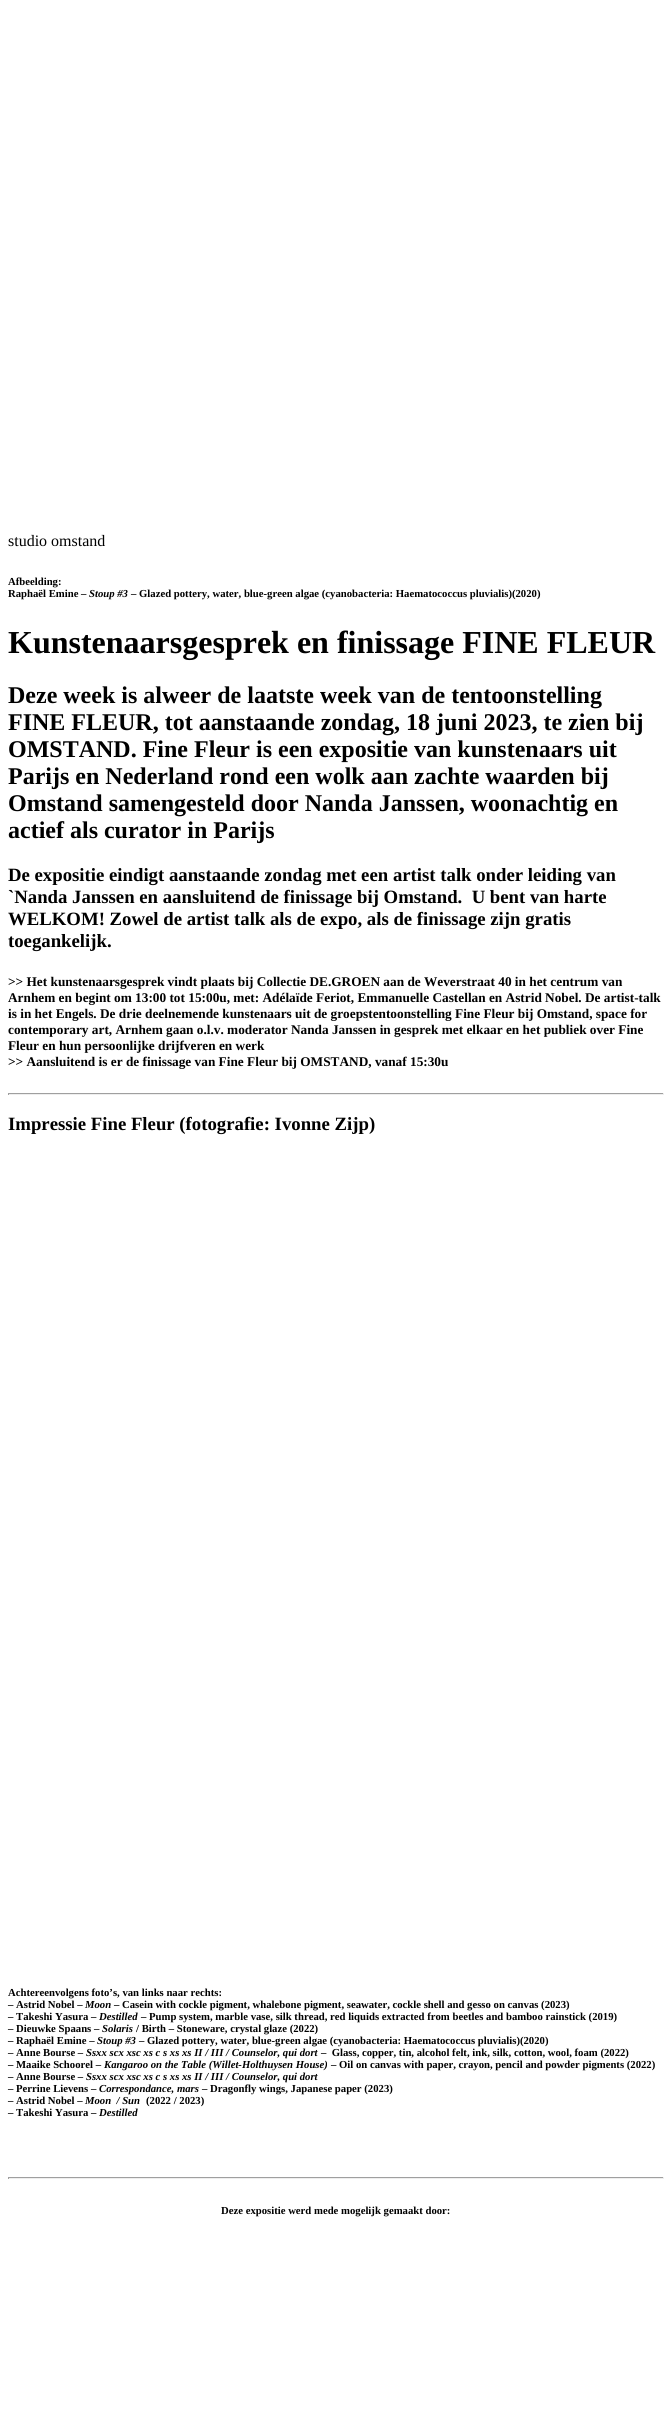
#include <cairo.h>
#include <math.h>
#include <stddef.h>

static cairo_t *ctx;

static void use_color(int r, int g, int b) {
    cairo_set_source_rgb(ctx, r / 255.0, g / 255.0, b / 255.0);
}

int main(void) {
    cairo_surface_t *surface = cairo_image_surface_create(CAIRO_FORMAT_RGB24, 672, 2419);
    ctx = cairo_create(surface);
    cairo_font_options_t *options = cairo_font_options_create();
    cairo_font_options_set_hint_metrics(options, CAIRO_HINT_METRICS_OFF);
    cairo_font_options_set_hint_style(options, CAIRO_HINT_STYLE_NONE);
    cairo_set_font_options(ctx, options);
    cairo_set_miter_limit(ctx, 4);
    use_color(255, 255, 255);
    cairo_paint(ctx);
    cairo_select_font_face(ctx, "Liberation Serif", CAIRO_FONT_SLANT_NORMAL, CAIRO_FONT_WEIGHT_NORMAL);
    cairo_set_font_size(ctx, 16);
    use_color(0, 0, 0);
    cairo_move_to(ctx, 8, 546);
    cairo_show_text(ctx, "studio omstand");
    cairo_select_font_face(ctx, "Liberation Serif", CAIRO_FONT_SLANT_NORMAL, CAIRO_FONT_WEIGHT_BOLD);
    cairo_set_font_size(ctx, 10.7);
    cairo_move_to(ctx, 8, 585);
    cairo_show_text(ctx, "Afbeelding:");
    cairo_move_to(ctx, 8, 597);
    cairo_show_text(ctx, "Raphaël Emine –");
    cairo_select_font_face(ctx, "Liberation Serif", CAIRO_FONT_SLANT_ITALIC, CAIRO_FONT_WEIGHT_BOLD);
    cairo_move_to(ctx, 89, 597);
    cairo_show_text(ctx, "Stoup #3");
    cairo_select_font_face(ctx, "Liberation Serif", CAIRO_FONT_SLANT_NORMAL, CAIRO_FONT_WEIGHT_BOLD);
    cairo_move_to(ctx, 131, 597);
    cairo_show_text(ctx, "– Glazed pottery, water, blue-green algae (cyanobacteria: Haematococcus pluvialis)(2020)");
    cairo_set_font_size(ctx, 32);
    cairo_move_to(ctx, 8, 653);
    cairo_show_text(ctx, "Kunstenaarsgesprek en finissage FINE FLEUR");
    cairo_set_font_size(ctx, 24);
    cairo_move_to(ctx, 8, 703);
    cairo_show_text(ctx, "Deze week is alweer de laatste week van de tentoonstelling");
    cairo_move_to(ctx, 8, 730);
    cairo_show_text(ctx, "FINE FLEUR, tot aanstaande zondag, 18 juni 2023, te zien bij");
    cairo_move_to(ctx, 8, 757);
    cairo_show_text(ctx, "OMSTAND. Fine Fleur is een expositie van kunstenaars uit");
    cairo_move_to(ctx, 8, 784);
    cairo_show_text(ctx, "Parijs en Nederland rond een wolk aan zachte waarden bij");
    cairo_move_to(ctx, 8, 811);
    cairo_show_text(ctx, "Omstand samengesteld door Nanda Janssen, woonachtig en");
    cairo_move_to(ctx, 8, 838);
    cairo_show_text(ctx, "actief als curator in Parijs");
    cairo_set_font_size(ctx, 18.75);
    cairo_move_to(ctx, 8, 881);
    cairo_show_text(ctx, "De expositie eindigt aanstaande zondag met een artist talk onder leiding van");
    cairo_move_to(ctx, 8, 903);
    cairo_show_text(ctx, "`Nanda Janssen en aansluitend de finissage bij Omstand.  U bent van harte");
    cairo_move_to(ctx, 8, 925);
    cairo_show_text(ctx, "WELKOM! Zowel de artist talk als de expo, als de finissage zijn gratis");
    cairo_move_to(ctx, 8, 947);
    cairo_show_text(ctx, "toegankelijk.");
    cairo_set_font_size(ctx, 13.3);
    cairo_move_to(ctx, 8, 986);
    cairo_show_text(ctx, ">> Het kunstenaarsgesprek vindt plaats bij Collectie DE.GROEN aan de Weverstraat 40 in het centrum van");
    cairo_move_to(ctx, 8, 1002);
    cairo_show_text(ctx, "Arnhem en begint om 13:00 tot 15:00u, met: Adélaïde Feriot, Emmanuelle Castellan en Astrid Nobel. De artist-talk");
    cairo_move_to(ctx, 8, 1018);
    cairo_show_text(ctx, "is in het Engels. De drie deelnemende kunstenaars uit de groepstentoonstelling Fine Fleur bij Omstand, space for");
    cairo_move_to(ctx, 8, 1034);
    cairo_show_text(ctx, "contemporary art, Arnhem gaan o.l.v. moderator Nanda Janssen in gesprek met elkaar en het publiek over Fine");
    cairo_move_to(ctx, 8, 1050);
    cairo_show_text(ctx, "Fleur en hun persoonlijke drijfveren en werk");
    cairo_move_to(ctx, 8, 1066);
    cairo_show_text(ctx, ">> Aansluitend is er de finissage van Fine Fleur bij OMSTAND, vanaf 15:30u");
    use_color(159, 159, 159);
    cairo_rectangle(ctx, 8, 1093, 656, 1);
    cairo_fill(ctx);
    use_color(238, 238, 238);
    cairo_rectangle(ctx, 663, 1093, 1, 2);
    cairo_fill(ctx);
    cairo_rectangle(ctx, 8, 1094, 656, 1);
    cairo_fill(ctx);
    use_color(159, 159, 159);
    cairo_rectangle(ctx, 8, 1093, 1, 2);
    cairo_fill(ctx);
    cairo_set_font_size(ctx, 18.75);
    use_color(0, 0, 0);
    cairo_move_to(ctx, 8, 1130);
    cairo_show_text(ctx, "Impressie Fine Fleur (fotografie: Ivonne Zijp)");
    cairo_set_font_size(ctx, 10.7);
    cairo_move_to(ctx, 8, 1996);
    cairo_show_text(ctx, "Achtereenvolgens foto’s, van links naar rechts:");
    cairo_move_to(ctx, 8, 2008);
    cairo_show_text(ctx, "– Astrid Nobel –");
    cairo_select_font_face(ctx, "Liberation Serif", CAIRO_FONT_SLANT_ITALIC, CAIRO_FONT_WEIGHT_BOLD);
    cairo_move_to(ctx, 85, 2008);
    cairo_show_text(ctx, "Moon");
    cairo_select_font_face(ctx, "Liberation Serif", CAIRO_FONT_SLANT_NORMAL, CAIRO_FONT_WEIGHT_BOLD);
    cairo_move_to(ctx, 114, 2008);
    cairo_show_text(ctx, "– Casein with cockle pigment, whalebone pigment, seawater, cockle shell and gesso on canvas (2023)");
    cairo_move_to(ctx, 8, 2020);
    cairo_show_text(ctx, "– Takeshi Yasura –");
    cairo_select_font_face(ctx, "Liberation Serif", CAIRO_FONT_SLANT_ITALIC, CAIRO_FONT_WEIGHT_BOLD);
    cairo_move_to(ctx, 99, 2020);
    cairo_show_text(ctx, "Destilled");
    cairo_select_font_face(ctx, "Liberation Serif", CAIRO_FONT_SLANT_NORMAL, CAIRO_FONT_WEIGHT_BOLD);
    cairo_move_to(ctx, 141, 2020);
    cairo_show_text(ctx, "– Pump system, marble vase, silk thread, red liquids extracted from beetles and bamboo rainstick (2019)");
    cairo_move_to(ctx, 8, 2032);
    cairo_show_text(ctx, "– Dieuwke Spaans –");
    cairo_select_font_face(ctx, "Liberation Serif", CAIRO_FONT_SLANT_ITALIC, CAIRO_FONT_WEIGHT_BOLD);
    cairo_move_to(ctx, 102, 2032);
    cairo_show_text(ctx, "Solaris");
    cairo_select_font_face(ctx, "Liberation Serif", CAIRO_FONT_SLANT_NORMAL, CAIRO_FONT_WEIGHT_BOLD);
    cairo_move_to(ctx, 136, 2032);
    cairo_show_text(ctx, "/ Birth – Stoneware, crystal glaze (2022)");
    cairo_move_to(ctx, 8, 2044);
    cairo_show_text(ctx, "– Raphaël Emine –");
    cairo_select_font_face(ctx, "Liberation Serif", CAIRO_FONT_SLANT_ITALIC, CAIRO_FONT_WEIGHT_BOLD);
    cairo_move_to(ctx, 97, 2044);
    cairo_show_text(ctx, "Stoup #3");
    cairo_select_font_face(ctx, "Liberation Serif", CAIRO_FONT_SLANT_NORMAL, CAIRO_FONT_WEIGHT_BOLD);
    cairo_move_to(ctx, 139, 2044);
    cairo_show_text(ctx, "– Glazed pottery, water, blue-green algae (cyanobacteria: Haematococcus pluvialis)(2020)");
    cairo_move_to(ctx, 8, 2056);
    cairo_show_text(ctx, "– Anne Bourse –");
    cairo_select_font_face(ctx, "Liberation Serif", CAIRO_FONT_SLANT_ITALIC, CAIRO_FONT_WEIGHT_BOLD);
    cairo_move_to(ctx, 86, 2056);
    cairo_show_text(ctx, "Ssxx scx xsc xs c s xs xs II / III / Counselor, qui dort");
    cairo_select_font_face(ctx, "Liberation Serif", CAIRO_FONT_SLANT_NORMAL, CAIRO_FONT_WEIGHT_BOLD);
    cairo_move_to(ctx, 321, 2056);
    cairo_show_text(ctx, "–  Glass, copper, tin, alcohol felt, ink, silk, cotton, wool, foam (2022)");
    cairo_move_to(ctx, 8, 2068);
    cairo_show_text(ctx, "– Maaike Schoorel –");
    cairo_select_font_face(ctx, "Liberation Serif", CAIRO_FONT_SLANT_ITALIC, CAIRO_FONT_WEIGHT_BOLD);
    cairo_move_to(ctx, 104, 2068);
    cairo_show_text(ctx, "Kangaroo on the Table (Willet-Holthuysen House)");
    cairo_select_font_face(ctx, "Liberation Serif", CAIRO_FONT_SLANT_NORMAL, CAIRO_FONT_WEIGHT_BOLD);
    cairo_move_to(ctx, 331, 2068);
    cairo_show_text(ctx, "– Oil on canvas with paper, crayon, pencil and powder pigments (2022)");
    cairo_move_to(ctx, 8, 2080);
    cairo_show_text(ctx, "– Anne Bourse –");
    cairo_select_font_face(ctx, "Liberation Serif", CAIRO_FONT_SLANT_ITALIC, CAIRO_FONT_WEIGHT_BOLD);
    cairo_move_to(ctx, 86, 2080);
    cairo_show_text(ctx, "Ssxx scx xsc xs c s xs xs II / III / Counselor, qui dort");
    cairo_select_font_face(ctx, "Liberation Serif", CAIRO_FONT_SLANT_NORMAL, CAIRO_FONT_WEIGHT_BOLD);
    cairo_move_to(ctx, 8, 2092);
    cairo_show_text(ctx, "– Perrine Lievens –");
    cairo_select_font_face(ctx, "Liberation Serif", CAIRO_FONT_SLANT_ITALIC, CAIRO_FONT_WEIGHT_BOLD);
    cairo_move_to(ctx, 99, 2092);
    cairo_show_text(ctx, "Correspondance, mars");
    cairo_select_font_face(ctx, "Liberation Serif", CAIRO_FONT_SLANT_NORMAL, CAIRO_FONT_WEIGHT_BOLD);
    cairo_move_to(ctx, 202, 2092);
    cairo_show_text(ctx, "– Dragonfly wings, Japanese paper (2023)");
    cairo_move_to(ctx, 8, 2104);
    cairo_show_text(ctx, "– Astrid Nobel –");
    cairo_select_font_face(ctx, "Liberation Serif", CAIRO_FONT_SLANT_ITALIC, CAIRO_FONT_WEIGHT_BOLD);
    cairo_move_to(ctx, 85, 2104);
    cairo_show_text(ctx, "Moon  / Sun");
    cairo_select_font_face(ctx, "Liberation Serif", CAIRO_FONT_SLANT_NORMAL, CAIRO_FONT_WEIGHT_BOLD);
    cairo_move_to(ctx, 146, 2104);
    cairo_show_text(ctx, "(2022 / 2023)");
    cairo_move_to(ctx, 8, 2116);
    cairo_show_text(ctx, "– Takeshi Yasura –");
    cairo_select_font_face(ctx, "Liberation Serif", CAIRO_FONT_SLANT_ITALIC, CAIRO_FONT_WEIGHT_BOLD);
    cairo_move_to(ctx, 99, 2116);
    cairo_show_text(ctx, "Destilled");
    use_color(159, 159, 159);
    cairo_rectangle(ctx, 8, 2177, 656, 1);
    cairo_fill(ctx);
    use_color(238, 238, 238);
    cairo_rectangle(ctx, 663, 2177, 1, 2);
    cairo_fill(ctx);
    cairo_rectangle(ctx, 8, 2178, 656, 1);
    cairo_fill(ctx);
    use_color(159, 159, 159);
    cairo_rectangle(ctx, 8, 2177, 1, 2);
    cairo_fill(ctx);
    cairo_select_font_face(ctx, "Liberation Serif", CAIRO_FONT_SLANT_NORMAL, CAIRO_FONT_WEIGHT_BOLD);
    use_color(0, 0, 0);
    cairo_move_to(ctx, 221, 2214);
    cairo_show_text(ctx, "Deze expositie werd mede mogelijk gemaakt door:");
    cairo_surface_write_to_png(surface, "result.png");
    cairo_font_options_destroy(options);
    cairo_destroy(ctx);
    cairo_surface_destroy(surface);
    return 0;
}
